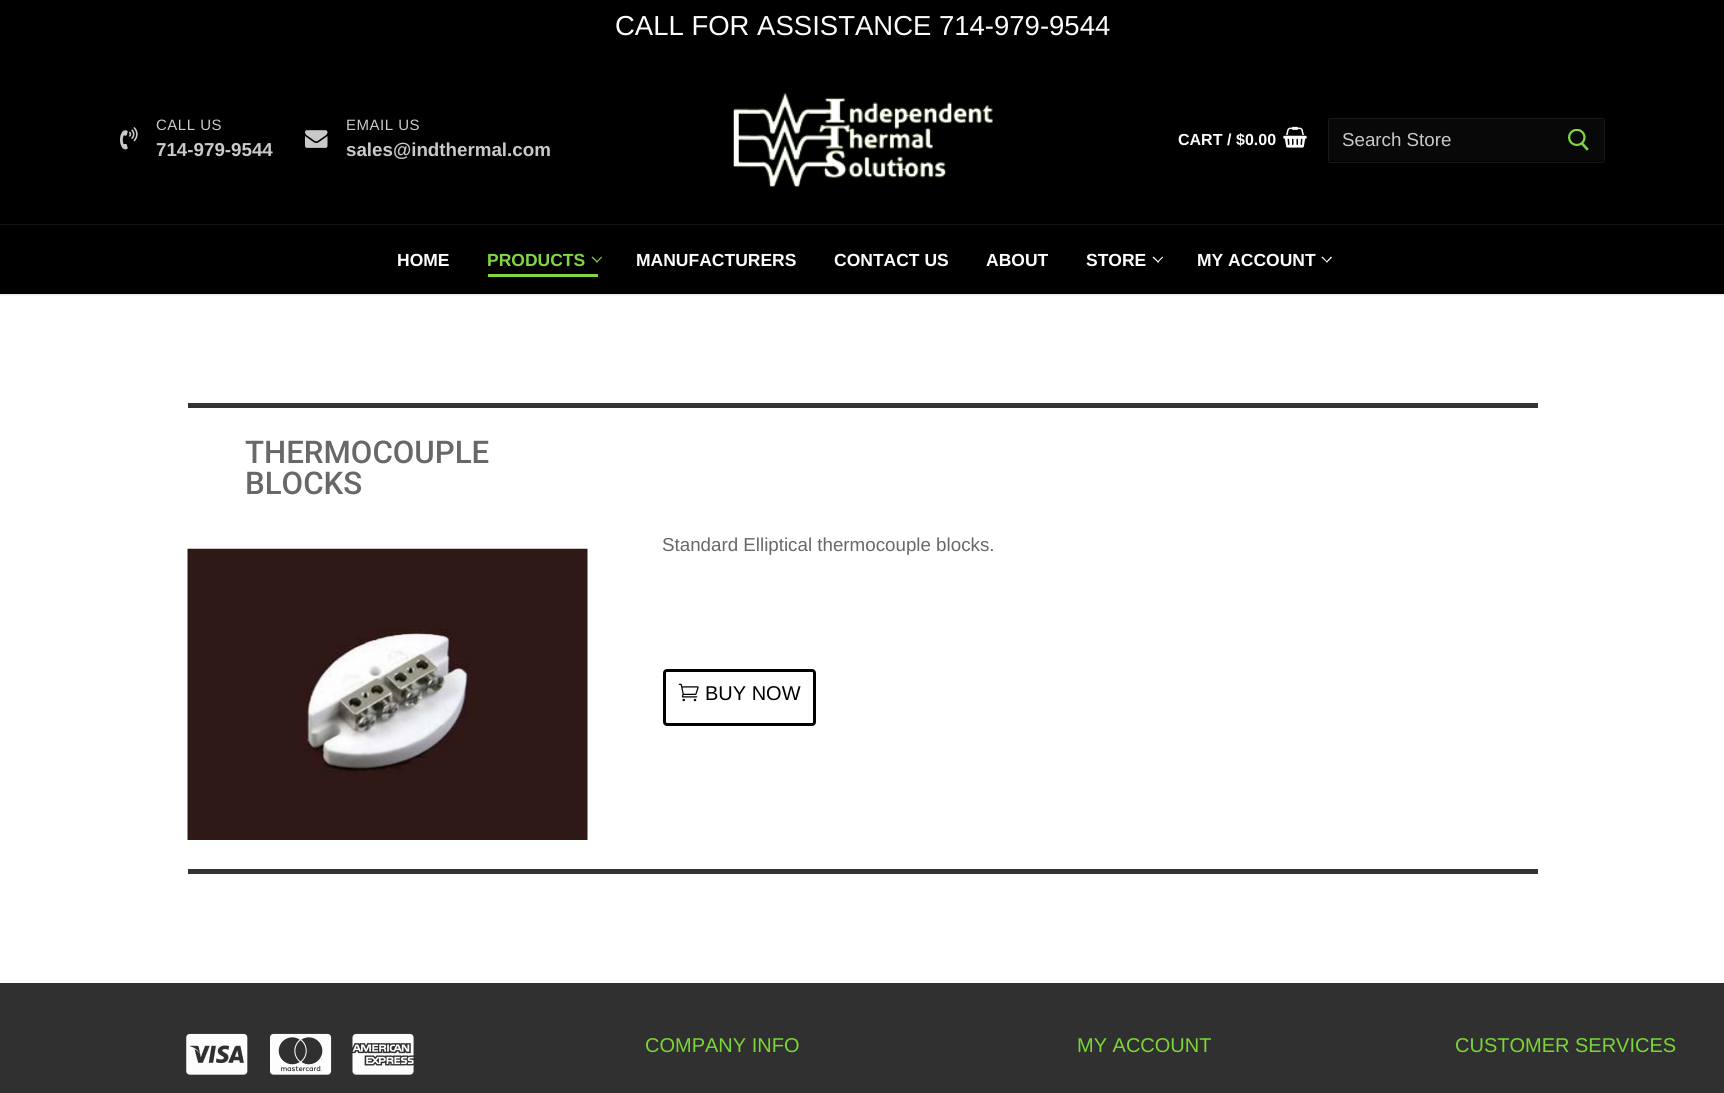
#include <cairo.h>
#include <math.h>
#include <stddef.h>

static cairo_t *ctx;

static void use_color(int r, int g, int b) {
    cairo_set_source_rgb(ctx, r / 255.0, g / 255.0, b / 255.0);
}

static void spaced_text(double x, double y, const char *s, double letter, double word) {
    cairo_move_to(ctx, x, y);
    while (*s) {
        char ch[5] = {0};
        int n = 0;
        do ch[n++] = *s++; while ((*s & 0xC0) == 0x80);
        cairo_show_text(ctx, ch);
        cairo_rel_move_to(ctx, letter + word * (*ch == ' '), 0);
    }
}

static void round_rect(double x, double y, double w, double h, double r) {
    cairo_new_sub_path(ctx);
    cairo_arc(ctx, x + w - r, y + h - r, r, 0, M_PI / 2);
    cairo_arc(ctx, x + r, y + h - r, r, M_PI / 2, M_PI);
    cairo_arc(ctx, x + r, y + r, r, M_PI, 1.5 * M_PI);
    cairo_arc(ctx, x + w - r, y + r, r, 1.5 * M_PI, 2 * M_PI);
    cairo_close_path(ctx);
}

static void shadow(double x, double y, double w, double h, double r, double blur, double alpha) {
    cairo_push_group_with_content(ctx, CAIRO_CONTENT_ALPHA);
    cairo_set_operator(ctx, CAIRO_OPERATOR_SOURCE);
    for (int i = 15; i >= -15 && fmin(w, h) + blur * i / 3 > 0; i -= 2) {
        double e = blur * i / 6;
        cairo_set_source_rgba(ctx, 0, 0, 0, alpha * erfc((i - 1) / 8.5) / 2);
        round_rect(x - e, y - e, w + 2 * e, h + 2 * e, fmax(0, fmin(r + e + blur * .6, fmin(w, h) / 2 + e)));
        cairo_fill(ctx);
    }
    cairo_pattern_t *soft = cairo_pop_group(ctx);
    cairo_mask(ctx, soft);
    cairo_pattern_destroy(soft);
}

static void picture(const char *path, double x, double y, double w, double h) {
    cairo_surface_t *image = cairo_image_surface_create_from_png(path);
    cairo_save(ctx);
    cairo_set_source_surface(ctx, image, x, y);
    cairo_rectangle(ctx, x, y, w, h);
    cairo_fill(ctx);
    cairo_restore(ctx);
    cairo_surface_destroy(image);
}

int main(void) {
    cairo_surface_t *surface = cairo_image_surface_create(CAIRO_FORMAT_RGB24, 1724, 1093);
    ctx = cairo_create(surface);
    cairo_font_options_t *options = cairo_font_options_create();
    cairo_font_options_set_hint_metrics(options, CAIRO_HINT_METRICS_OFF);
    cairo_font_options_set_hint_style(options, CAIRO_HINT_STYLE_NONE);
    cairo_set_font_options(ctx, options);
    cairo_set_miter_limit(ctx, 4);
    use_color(255, 255, 255);
    cairo_paint(ctx);
    use_color(0, 0, 0);
    cairo_rectangle(ctx, 0, 0, 1724, 225);
    cairo_fill(ctx);
    cairo_select_font_face(ctx, "Liberation Sans", CAIRO_FONT_SLANT_NORMAL, CAIRO_FONT_WEIGHT_NORMAL);
    cairo_set_font_size(ctx, 27.5);
    use_color(252, 252, 252);
    cairo_move_to(ctx, 615, 35);
    cairo_show_text(ctx, "CALL FOR ASSISTANCE 714-979-9544");
    picture("img1.png", 120, 127, 18, 23);
    cairo_set_font_size(ctx, 15);
    use_color(201, 201, 201);
    spaced_text(156, 130, "CALL US", 0.5, 0);
    cairo_select_font_face(ctx, "Liberation Sans", CAIRO_FONT_SLANT_NORMAL, CAIRO_FONT_WEIGHT_BOLD);
    cairo_set_font_size(ctx, 18.75);
    cairo_move_to(ctx, 156, 156);
    cairo_show_text(ctx, "714-979-9544");
    picture("img2.png", 305, 130, 23, 18);
    cairo_select_font_face(ctx, "Liberation Sans", CAIRO_FONT_SLANT_NORMAL, CAIRO_FONT_WEIGHT_NORMAL);
    cairo_set_font_size(ctx, 15);
    spaced_text(346, 130, "EMAIL US", 0.5, 0);
    cairo_select_font_face(ctx, "Liberation Sans", CAIRO_FONT_SLANT_NORMAL, CAIRO_FONT_WEIGHT_BOLD);
    cairo_set_font_size(ctx, 18.75);
    cairo_move_to(ctx, 346, 156);
    cairo_show_text(ctx, "sales@indthermal.com");
    picture("img3.png", 733, 92, 260, 95);
    cairo_set_font_size(ctx, 16);
    use_color(252, 252, 252);
    cairo_move_to(ctx, 1178, 145);
    cairo_show_text(ctx, "CART");
    cairo_move_to(ctx, 1227, 145);
    cairo_show_text(ctx, "/");
    cairo_move_to(ctx, 1236, 145);
    cairo_show_text(ctx, "$0.00");
    picture("img4.png", 1283, 126, 24, 22);
    round_rect(1328.5, 118.5, 276, 44, 2);
    use_color(25, 25, 25);
    cairo_set_line_width(ctx, 1);
    cairo_stroke(ctx);
    use_color(8, 8, 8);
    round_rect(1329, 119, 275, 42, 2.5);
    cairo_fill(ctx);
    cairo_select_font_face(ctx, "Liberation Sans", CAIRO_FONT_SLANT_NORMAL, CAIRO_FONT_WEIGHT_NORMAL);
    cairo_set_font_size(ctx, 18.75);
    use_color(201, 201, 201);
    cairo_move_to(ctx, 1342, 146);
    cairo_show_text(ctx, "Search Store");
    picture("img5.png", 1568, 129, 21, 22);
    use_color(225, 229, 234);
    shadow(0, 226, 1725, 69, 0, 1, 1);
    use_color(0, 0, 0);
    cairo_rectangle(ctx, 0, 225, 1724, 69);
    cairo_fill(ctx);
    cairo_select_font_face(ctx, "Liberation Sans", CAIRO_FONT_SLANT_NORMAL, CAIRO_FONT_WEIGHT_BOLD);
    cairo_set_font_size(ctx, 17.5);
    use_color(252, 252, 252);
    cairo_move_to(ctx, 397, 266);
    cairo_show_text(ctx, "HOME");
    use_color(129, 215, 66);
    cairo_move_to(ctx, 487, 266);
    cairo_show_text(ctx, "PRODUCTS");
    cairo_new_path(ctx);
    cairo_move_to(ctx, 597, 262.5);
    cairo_line_to(ctx, 591.5, 257.5);
    cairo_line_to(ctx, 592.5, 256.5);
    cairo_line_to(ctx, 598, 262);
    cairo_close_path(ctx);
    cairo_fill(ctx);
    cairo_new_path(ctx);
    cairo_move_to(ctx, 597, 262.5);
    cairo_line_to(ctx, 596, 262);
    cairo_line_to(ctx, 601.5, 256.5);
    cairo_line_to(ctx, 602, 257.5);
    cairo_close_path(ctx);
    cairo_fill(ctx);
    cairo_rectangle(ctx, 488, 274, 110, 3);
    cairo_fill(ctx);
    use_color(252, 252, 252);
    cairo_move_to(ctx, 636, 266);
    cairo_show_text(ctx, "MANUFACTURERS");
    cairo_move_to(ctx, 834, 266);
    cairo_show_text(ctx, "CONTACT US");
    cairo_move_to(ctx, 986, 266);
    cairo_show_text(ctx, "ABOUT");
    cairo_move_to(ctx, 1086, 266);
    cairo_show_text(ctx, "STORE");
    use_color(255, 255, 255);
    cairo_new_path(ctx);
    cairo_move_to(ctx, 1158, 262.5);
    cairo_line_to(ctx, 1152.5, 257.5);
    cairo_line_to(ctx, 1153.5, 256.5);
    cairo_line_to(ctx, 1159, 262);
    cairo_close_path(ctx);
    cairo_fill(ctx);
    cairo_new_path(ctx);
    cairo_move_to(ctx, 1158, 262.5);
    cairo_line_to(ctx, 1157, 262);
    cairo_line_to(ctx, 1162.5, 256.5);
    cairo_line_to(ctx, 1163, 257.5);
    cairo_close_path(ctx);
    cairo_fill(ctx);
    use_color(252, 252, 252);
    cairo_move_to(ctx, 1197, 266);
    cairo_show_text(ctx, "MY ACCOUNT");
    use_color(255, 255, 255);
    cairo_new_path(ctx);
    cairo_move_to(ctx, 1327, 262.5);
    cairo_line_to(ctx, 1321.5, 257.5);
    cairo_line_to(ctx, 1322.5, 256.5);
    cairo_line_to(ctx, 1327.5, 262);
    cairo_close_path(ctx);
    cairo_fill(ctx);
    cairo_new_path(ctx);
    cairo_move_to(ctx, 1327, 262.5);
    cairo_line_to(ctx, 1326, 262);
    cairo_line_to(ctx, 1331, 256.5);
    cairo_line_to(ctx, 1332, 257.5);
    cairo_close_path(ctx);
    cairo_fill(ctx);
    use_color(51, 51, 51);
    cairo_rectangle(ctx, 188, 403, 1350, 5);
    cairo_fill(ctx);
    cairo_rectangle(ctx, 188, 869, 1350, 5);
    cairo_fill(ctx);
    cairo_select_font_face(ctx, "Roboto Medium", CAIRO_FONT_SLANT_NORMAL, CAIRO_FONT_WEIGHT_NORMAL);
    cairo_set_font_size(ctx, 31.25);
    use_color(104, 104, 104);
    cairo_move_to(ctx, 245, 463);
    cairo_show_text(ctx, "THERMOCOUPLE");
    cairo_move_to(ctx, 245, 494);
    cairo_show_text(ctx, "BLOCKS");
    picture("img6.png", 187, 548, 401, 292);
    cairo_select_font_face(ctx, "Liberation Sans", CAIRO_FONT_SLANT_NORMAL, CAIRO_FONT_WEIGHT_NORMAL);
    cairo_set_font_size(ctx, 18.75);
    cairo_move_to(ctx, 662, 551);
    cairo_show_text(ctx, "Standard Elliptical thermocouple blocks.");
    round_rect(664.5, 670.5, 150, 54, 2.5);
    use_color(0, 0, 0);
    cairo_set_line_width(ctx, 3);
    cairo_stroke(ctx);
    picture("img7.png", 678, 683, 21, 19);
    cairo_set_font_size(ctx, 20);
    cairo_move_to(ctx, 705, 700);
    cairo_show_text(ctx, "BUY NOW");
    use_color(48, 48, 48);
    cairo_rectangle(ctx, 0, 983, 1724, 110);
    cairo_fill(ctx);
    picture("img8.png", 186, 1033, 62, 42);
    picture("img9.png", 270, 1033, 62, 42);
    picture("img10.png", 352, 1033, 62, 42);
    use_color(121, 214, 55);
    cairo_move_to(ctx, 645, 1052);
    cairo_show_text(ctx, "COMPANY INFO");
    cairo_move_to(ctx, 1077, 1052);
    cairo_show_text(ctx, "MY ACCOUNT");
    cairo_move_to(ctx, 1455, 1052);
    cairo_show_text(ctx, "CUSTOMER SERVICES");
    cairo_surface_write_to_png(surface, "result.png");
    cairo_font_options_destroy(options);
    cairo_destroy(ctx);
    cairo_surface_destroy(surface);
    return 0;
}
